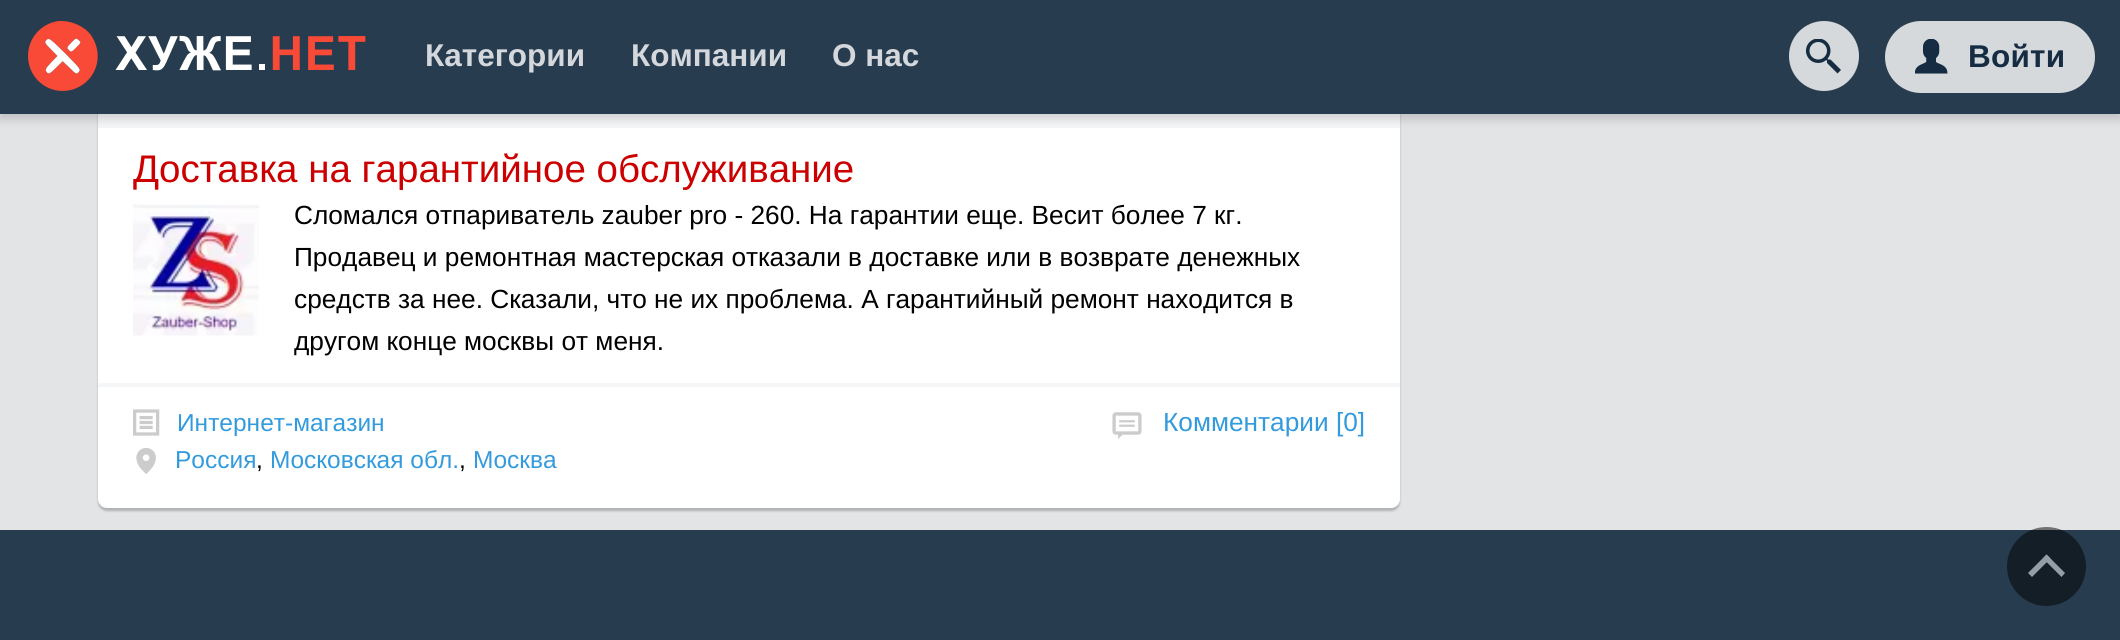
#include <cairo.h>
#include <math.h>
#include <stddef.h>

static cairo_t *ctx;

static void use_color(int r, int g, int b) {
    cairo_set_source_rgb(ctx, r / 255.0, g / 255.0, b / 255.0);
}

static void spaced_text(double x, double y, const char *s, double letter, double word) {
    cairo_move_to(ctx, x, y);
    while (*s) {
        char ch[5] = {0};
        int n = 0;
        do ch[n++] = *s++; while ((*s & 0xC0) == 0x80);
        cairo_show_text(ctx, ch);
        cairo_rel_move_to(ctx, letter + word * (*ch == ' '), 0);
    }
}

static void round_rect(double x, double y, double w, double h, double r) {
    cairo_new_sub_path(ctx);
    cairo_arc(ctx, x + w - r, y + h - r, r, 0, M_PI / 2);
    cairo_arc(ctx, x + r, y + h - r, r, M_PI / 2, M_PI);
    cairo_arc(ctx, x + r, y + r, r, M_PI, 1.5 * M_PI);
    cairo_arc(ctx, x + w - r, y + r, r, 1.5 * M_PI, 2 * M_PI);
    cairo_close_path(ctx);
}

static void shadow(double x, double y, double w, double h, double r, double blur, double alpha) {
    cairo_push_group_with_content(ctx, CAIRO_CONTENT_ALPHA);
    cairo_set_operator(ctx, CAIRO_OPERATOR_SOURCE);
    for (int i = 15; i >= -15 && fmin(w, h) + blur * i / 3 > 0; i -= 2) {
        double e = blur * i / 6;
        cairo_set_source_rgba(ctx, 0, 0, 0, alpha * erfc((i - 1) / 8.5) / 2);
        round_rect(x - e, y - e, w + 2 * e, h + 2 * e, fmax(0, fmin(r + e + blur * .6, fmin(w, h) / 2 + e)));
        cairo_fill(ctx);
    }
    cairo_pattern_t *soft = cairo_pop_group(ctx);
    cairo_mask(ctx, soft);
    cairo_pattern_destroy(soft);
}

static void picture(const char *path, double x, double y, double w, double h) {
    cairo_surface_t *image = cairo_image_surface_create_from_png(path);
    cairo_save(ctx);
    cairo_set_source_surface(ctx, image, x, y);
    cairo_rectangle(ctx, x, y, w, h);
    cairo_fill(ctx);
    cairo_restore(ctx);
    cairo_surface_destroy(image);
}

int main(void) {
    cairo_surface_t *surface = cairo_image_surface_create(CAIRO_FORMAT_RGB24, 2120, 640);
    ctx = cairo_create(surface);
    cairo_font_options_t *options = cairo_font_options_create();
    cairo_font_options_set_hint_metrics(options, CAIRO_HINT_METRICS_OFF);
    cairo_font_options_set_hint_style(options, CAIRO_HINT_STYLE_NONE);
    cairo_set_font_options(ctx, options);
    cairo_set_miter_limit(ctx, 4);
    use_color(226, 228, 230);
    cairo_paint(ctx);
    use_color(128, 128, 128);
    shadow(98, 12, 1302, 499, 9, 1, 0.5);
    use_color(255, 255, 255);
    round_rect(98, 9, 1302, 499, 9);
    cairo_fill(ctx);
    use_color(244, 246, 248);
    cairo_rectangle(ctx, 98, 114, 1302, 14);
    cairo_fill(ctx);
    use_color(0, 0, 0);
    shadow(0, 5, 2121, 114, 0, 5, 0.16);
    use_color(40, 60, 79);
    cairo_rectangle(ctx, 0, 0, 2120, 114);
    cairo_fill(ctx);
    picture("img1.png", 28, 21, 338, 70);
    cairo_select_font_face(ctx, "Liberation Sans", CAIRO_FONT_SLANT_NORMAL, CAIRO_FONT_WEIGHT_BOLD);
    cairo_set_font_size(ctx, 31.5);
    use_color(212, 216, 220);
    cairo_move_to(ctx, 425, 66);
    cairo_show_text(ctx, "Категории");
    cairo_move_to(ctx, 631, 66);
    cairo_show_text(ctx, "Компании");
    cairo_move_to(ctx, 832, 66);
    cairo_show_text(ctx, "О нас");
    use_color(213, 217, 220);
    cairo_new_path(ctx);
    cairo_arc(ctx, 1824, 56, 35, 0, 2 * M_PI);
    cairo_fill(ctx);
    picture("img2.png", 1806, 39, 35, 35);
    round_rect(1885, 21, 210, 72, 36);
    cairo_fill(ctx);
    picture("img3.png", 1915, 39, 33, 35);
    use_color(21, 44, 67);
    spaced_text(1968, 67, "Войти", 0.25, 0);
    cairo_select_font_face(ctx, "Liberation Sans", CAIRO_FONT_SLANT_NORMAL, CAIRO_FONT_WEIGHT_NORMAL);
    cairo_set_font_size(ctx, 38.5);
    use_color(204, 0, 0);
    cairo_move_to(ctx, 133, 182);
    cairo_show_text(ctx, "Доставка на гарантийное обслуживание");
    picture("img4.png", 133, 204, 126, 132);
    cairo_set_font_size(ctx, 26.25);
    use_color(0, 0, 0);
    cairo_move_to(ctx, 294, 224);
    cairo_show_text(ctx, "Сломался отпариватель zauber pro - 260. На гарантии еще. Весит более 7 кг.");
    cairo_move_to(ctx, 294, 266);
    cairo_show_text(ctx, "Продавец и ремонтная мастерская отказали в доставке или в возврате денежных");
    cairo_move_to(ctx, 294, 308);
    cairo_show_text(ctx, "средств за нее. Сказали, что не их проблема. А гарантийный ремонт находится в");
    cairo_move_to(ctx, 294, 350);
    cairo_show_text(ctx, "другом конце москвы от меня.");
    use_color(244, 246, 248);
    cairo_rectangle(ctx, 98, 383, 1302, 4);
    cairo_fill(ctx);
    picture("img5.png", 133, 409, 27, 27);
    cairo_set_font_size(ctx, 24.5);
    use_color(51, 155, 221);
    cairo_move_to(ctx, 177, 431);
    cairo_show_text(ctx, "Интернет-магазин");
    picture("img6.png", 1112, 412, 30, 27);
    cairo_set_font_size(ctx, 26.25);
    cairo_move_to(ctx, 1163, 431);
    cairo_show_text(ctx, "Комментарии [0]");
    picture("img7.png", 136, 448, 20, 26);
    cairo_set_font_size(ctx, 24.5);
    cairo_move_to(ctx, 175, 468);
    cairo_show_text(ctx, "Россия");
    use_color(0, 0, 0);
    cairo_move_to(ctx, 256, 468);
    cairo_show_text(ctx, ",");
    use_color(51, 155, 221);
    cairo_move_to(ctx, 270, 468);
    cairo_show_text(ctx, "Московская обл.");
    use_color(0, 0, 0);
    cairo_move_to(ctx, 459, 468);
    cairo_show_text(ctx, ",");
    use_color(51, 155, 221);
    cairo_move_to(ctx, 473, 468);
    cairo_show_text(ctx, "Москва");
    use_color(40, 60, 79);
    cairo_rectangle(ctx, 0, 530, 2120, 110);
    cairo_fill(ctx);
    cairo_set_source_rgba(ctx, 0, 0, 0, 0.5);
    cairo_arc(ctx, 2046.5, 566.5, 39.5, 0, 2 * M_PI);
    cairo_fill(ctx);
    use_color(148, 158, 167);
    cairo_new_path(ctx);
    cairo_move_to(ctx, 2046.5, 554.5);
    cairo_line_to(ctx, 2065, 573);
    cairo_line_to(ctx, 2061.5, 577);
    cairo_line_to(ctx, 2043, 558.5);
    cairo_close_path(ctx);
    cairo_fill(ctx);
    cairo_new_path(ctx);
    cairo_move_to(ctx, 2046.5, 554.5);
    cairo_line_to(ctx, 2050.5, 558.5);
    cairo_line_to(ctx, 2032, 577);
    cairo_line_to(ctx, 2028, 573);
    cairo_close_path(ctx);
    cairo_fill(ctx);
    cairo_surface_write_to_png(surface, "result.png");
    cairo_font_options_destroy(options);
    cairo_destroy(ctx);
    cairo_surface_destroy(surface);
    return 0;
}
